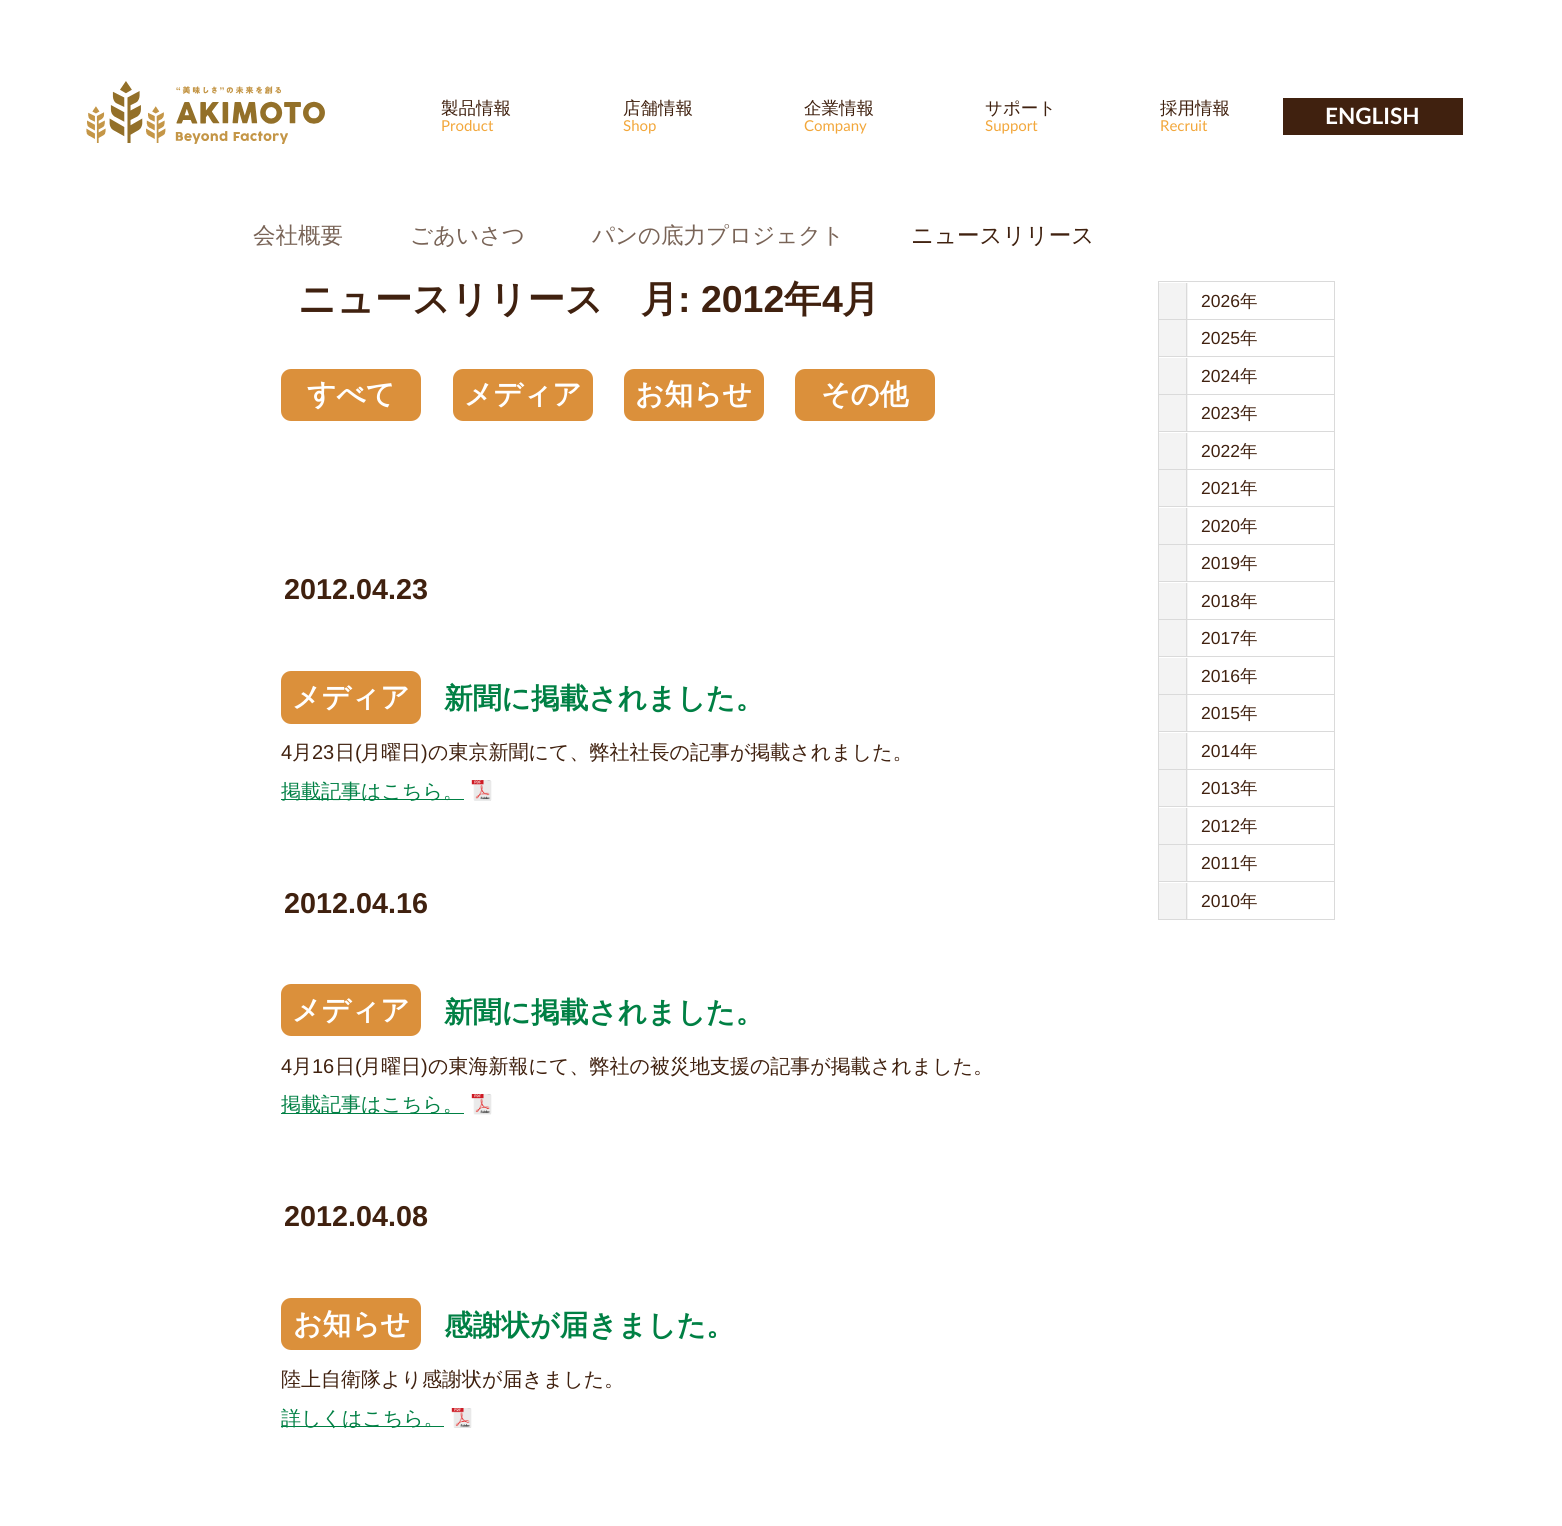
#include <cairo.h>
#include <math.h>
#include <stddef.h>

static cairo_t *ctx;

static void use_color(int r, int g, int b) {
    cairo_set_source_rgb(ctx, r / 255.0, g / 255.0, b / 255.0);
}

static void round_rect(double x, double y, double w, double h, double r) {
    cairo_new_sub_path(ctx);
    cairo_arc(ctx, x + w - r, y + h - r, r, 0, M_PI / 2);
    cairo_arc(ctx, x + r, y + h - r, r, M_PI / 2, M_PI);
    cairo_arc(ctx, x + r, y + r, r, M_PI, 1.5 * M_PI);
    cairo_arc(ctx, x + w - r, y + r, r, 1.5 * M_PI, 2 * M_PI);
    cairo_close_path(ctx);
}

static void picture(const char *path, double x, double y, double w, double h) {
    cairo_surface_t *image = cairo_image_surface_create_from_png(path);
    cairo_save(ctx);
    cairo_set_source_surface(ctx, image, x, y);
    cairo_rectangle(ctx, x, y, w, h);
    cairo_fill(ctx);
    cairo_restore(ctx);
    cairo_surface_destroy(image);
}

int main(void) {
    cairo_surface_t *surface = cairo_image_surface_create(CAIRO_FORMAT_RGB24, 1562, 1526);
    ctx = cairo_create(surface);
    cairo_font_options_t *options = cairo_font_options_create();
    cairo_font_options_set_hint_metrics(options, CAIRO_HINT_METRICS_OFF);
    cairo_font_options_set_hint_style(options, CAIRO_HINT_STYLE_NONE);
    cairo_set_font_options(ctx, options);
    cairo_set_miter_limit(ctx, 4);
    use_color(255, 255, 255);
    cairo_paint(ctx);
    picture("img1.png", 86, 81, 239, 63);
    cairo_select_font_face(ctx, "WenQuanYi Zen Hei Medium", CAIRO_FONT_SLANT_NORMAL, CAIRO_FONT_WEIGHT_NORMAL);
    cairo_set_font_size(ctx, 17.5);
    use_color(64, 33, 15);
    cairo_move_to(ctx, 441, 114);
    cairo_show_text(ctx, "製品情報");
    cairo_select_font_face(ctx, "Lato", CAIRO_FONT_SLANT_NORMAL, CAIRO_FONT_WEIGHT_NORMAL);
    cairo_set_font_size(ctx, 15);
    use_color(242, 167, 59);
    cairo_move_to(ctx, 441, 131);
    cairo_show_text(ctx, "Product");
    cairo_select_font_face(ctx, "WenQuanYi Zen Hei Medium", CAIRO_FONT_SLANT_NORMAL, CAIRO_FONT_WEIGHT_NORMAL);
    cairo_set_font_size(ctx, 17.5);
    use_color(64, 33, 15);
    cairo_move_to(ctx, 623, 114);
    cairo_show_text(ctx, "店舗情報");
    cairo_select_font_face(ctx, "Lato", CAIRO_FONT_SLANT_NORMAL, CAIRO_FONT_WEIGHT_NORMAL);
    cairo_set_font_size(ctx, 15);
    use_color(242, 167, 59);
    cairo_move_to(ctx, 623, 131);
    cairo_show_text(ctx, "Shop");
    cairo_select_font_face(ctx, "WenQuanYi Zen Hei Medium", CAIRO_FONT_SLANT_NORMAL, CAIRO_FONT_WEIGHT_NORMAL);
    cairo_set_font_size(ctx, 17.5);
    use_color(64, 33, 15);
    cairo_move_to(ctx, 804, 114);
    cairo_show_text(ctx, "企業情報");
    cairo_select_font_face(ctx, "Lato", CAIRO_FONT_SLANT_NORMAL, CAIRO_FONT_WEIGHT_NORMAL);
    cairo_set_font_size(ctx, 15);
    use_color(242, 167, 59);
    cairo_move_to(ctx, 804, 131);
    cairo_show_text(ctx, "Company");
    cairo_select_font_face(ctx, "WenQuanYi Zen Hei Medium", CAIRO_FONT_SLANT_NORMAL, CAIRO_FONT_WEIGHT_NORMAL);
    cairo_set_font_size(ctx, 17.5);
    use_color(64, 33, 15);
    cairo_move_to(ctx, 985, 114);
    cairo_show_text(ctx, "サポート");
    cairo_select_font_face(ctx, "Lato", CAIRO_FONT_SLANT_NORMAL, CAIRO_FONT_WEIGHT_NORMAL);
    cairo_set_font_size(ctx, 15);
    use_color(242, 167, 59);
    cairo_move_to(ctx, 985, 131);
    cairo_show_text(ctx, "Support");
    cairo_select_font_face(ctx, "WenQuanYi Zen Hei Medium", CAIRO_FONT_SLANT_NORMAL, CAIRO_FONT_WEIGHT_NORMAL);
    cairo_set_font_size(ctx, 17.5);
    use_color(64, 33, 15);
    cairo_move_to(ctx, 1160, 114);
    cairo_show_text(ctx, "採用情報");
    cairo_select_font_face(ctx, "Lato", CAIRO_FONT_SLANT_NORMAL, CAIRO_FONT_WEIGHT_NORMAL);
    cairo_set_font_size(ctx, 15);
    use_color(242, 167, 59);
    cairo_move_to(ctx, 1160, 131);
    cairo_show_text(ctx, "Recruit");
    use_color(64, 33, 15);
    cairo_rectangle(ctx, 1283, 98, 180, 37);
    cairo_fill(ctx);
    cairo_select_font_face(ctx, "Lato", CAIRO_FONT_SLANT_NORMAL, CAIRO_FONT_WEIGHT_BOLD);
    cairo_set_font_size(ctx, 22.5);
    use_color(255, 255, 255);
    cairo_move_to(ctx, 1325, 124);
    cairo_show_text(ctx, "ENGLISH");
    cairo_select_font_face(ctx, "WenQuanYi Zen Hei Medium", CAIRO_FONT_SLANT_NORMAL, CAIRO_FONT_WEIGHT_NORMAL);
    use_color(121, 100, 87);
    cairo_move_to(ctx, 253, 243);
    cairo_show_text(ctx, "会社概要");
    cairo_move_to(ctx, 410, 243);
    cairo_show_text(ctx, "ごあいさつ");
    cairo_move_to(ctx, 592, 243);
    cairo_show_text(ctx, "パンの底力プロジェクト");
    use_color(64, 33, 15);
    cairo_move_to(ctx, 911, 243);
    cairo_show_text(ctx, "ニュースリリース");
    cairo_select_font_face(ctx, "WenQuanYi Zen Hei", CAIRO_FONT_SLANT_NORMAL, CAIRO_FONT_WEIGHT_BOLD);
    cairo_set_font_size(ctx, 37.5);
    cairo_move_to(ctx, 298, 312);
    cairo_show_text(ctx, "ニュースリリース　月");
    cairo_select_font_face(ctx, "Liberation Sans", CAIRO_FONT_SLANT_NORMAL, CAIRO_FONT_WEIGHT_BOLD);
    cairo_move_to(ctx, 678, 312);
    cairo_show_text(ctx, ": 2012");
    cairo_select_font_face(ctx, "WenQuanYi Zen Hei", CAIRO_FONT_SLANT_NORMAL, CAIRO_FONT_WEIGHT_BOLD);
    cairo_move_to(ctx, 784, 312);
    cairo_show_text(ctx, "年");
    cairo_select_font_face(ctx, "Liberation Sans", CAIRO_FONT_SLANT_NORMAL, CAIRO_FONT_WEIGHT_BOLD);
    cairo_move_to(ctx, 822, 312);
    cairo_show_text(ctx, "4");
    cairo_select_font_face(ctx, "WenQuanYi Zen Hei", CAIRO_FONT_SLANT_NORMAL, CAIRO_FONT_WEIGHT_BOLD);
    cairo_move_to(ctx, 842, 312);
    cairo_show_text(ctx, "月");
    cairo_rectangle(ctx, 1158.5, 281.5, 176, 38);
    use_color(218, 218, 218);
    cairo_set_line_width(ctx, 1);
    cairo_stroke(ctx);
    use_color(243, 243, 243);
    cairo_rectangle(ctx, 1159, 283, 29, 36);
    cairo_fill(ctx);
    use_color(218, 218, 218);
    cairo_rectangle(ctx, 1186, 283, 1, 36);
    cairo_fill(ctx);
    cairo_select_font_face(ctx, "Liberation Sans", CAIRO_FONT_SLANT_NORMAL, CAIRO_FONT_WEIGHT_NORMAL);
    cairo_set_font_size(ctx, 17.5);
    use_color(64, 33, 15);
    cairo_move_to(ctx, 1201, 307);
    cairo_show_text(ctx, "2026");
    cairo_select_font_face(ctx, "WenQuanYi Zen Hei Medium", CAIRO_FONT_SLANT_NORMAL, CAIRO_FONT_WEIGHT_NORMAL);
    cairo_move_to(ctx, 1240, 307);
    cairo_show_text(ctx, "年");
    use_color(218, 218, 218);
    cairo_rectangle(ctx, 1334, 320, 1, 600);
    cairo_fill(ctx);
    cairo_rectangle(ctx, 1158, 356, 177, 1);
    cairo_fill(ctx);
    cairo_rectangle(ctx, 1158, 320, 1, 38);
    cairo_fill(ctx);
    use_color(243, 243, 243);
    cairo_rectangle(ctx, 1159, 320, 29, 36);
    cairo_fill(ctx);
    use_color(218, 218, 218);
    cairo_rectangle(ctx, 1186, 320, 1, 36);
    cairo_fill(ctx);
    cairo_select_font_face(ctx, "Liberation Sans", CAIRO_FONT_SLANT_NORMAL, CAIRO_FONT_WEIGHT_NORMAL);
    use_color(64, 33, 15);
    cairo_move_to(ctx, 1201, 344);
    cairo_show_text(ctx, "2025");
    cairo_select_font_face(ctx, "WenQuanYi Zen Hei Medium", CAIRO_FONT_SLANT_NORMAL, CAIRO_FONT_WEIGHT_NORMAL);
    cairo_move_to(ctx, 1240, 344);
    cairo_show_text(ctx, "年");
    use_color(218, 218, 218);
    cairo_rectangle(ctx, 1158, 394, 177, 1);
    cairo_fill(ctx);
    cairo_rectangle(ctx, 1158, 358, 1, 37);
    cairo_fill(ctx);
    use_color(243, 243, 243);
    cairo_rectangle(ctx, 1159, 358, 29, 36);
    cairo_fill(ctx);
    use_color(218, 218, 218);
    cairo_rectangle(ctx, 1186, 358, 1, 36);
    cairo_fill(ctx);
    cairo_select_font_face(ctx, "Liberation Sans", CAIRO_FONT_SLANT_NORMAL, CAIRO_FONT_WEIGHT_NORMAL);
    use_color(64, 33, 15);
    cairo_move_to(ctx, 1201, 382);
    cairo_show_text(ctx, "2024");
    cairo_select_font_face(ctx, "WenQuanYi Zen Hei Medium", CAIRO_FONT_SLANT_NORMAL, CAIRO_FONT_WEIGHT_NORMAL);
    cairo_move_to(ctx, 1240, 382);
    cairo_show_text(ctx, "年");
    use_color(218, 218, 218);
    cairo_rectangle(ctx, 1158, 431, 177, 1);
    cairo_fill(ctx);
    cairo_rectangle(ctx, 1158, 395, 1, 38);
    cairo_fill(ctx);
    use_color(243, 243, 243);
    cairo_rectangle(ctx, 1159, 395, 29, 36);
    cairo_fill(ctx);
    use_color(218, 218, 218);
    cairo_rectangle(ctx, 1186, 395, 1, 36);
    cairo_fill(ctx);
    cairo_select_font_face(ctx, "Liberation Sans", CAIRO_FONT_SLANT_NORMAL, CAIRO_FONT_WEIGHT_NORMAL);
    use_color(64, 33, 15);
    cairo_move_to(ctx, 1201, 419);
    cairo_show_text(ctx, "2023");
    cairo_select_font_face(ctx, "WenQuanYi Zen Hei Medium", CAIRO_FONT_SLANT_NORMAL, CAIRO_FONT_WEIGHT_NORMAL);
    cairo_move_to(ctx, 1240, 419);
    cairo_show_text(ctx, "年");
    use_color(218, 218, 218);
    cairo_rectangle(ctx, 1158, 469, 177, 1);
    cairo_fill(ctx);
    cairo_rectangle(ctx, 1158, 433, 1, 37);
    cairo_fill(ctx);
    use_color(243, 243, 243);
    cairo_rectangle(ctx, 1159, 433, 29, 36);
    cairo_fill(ctx);
    use_color(218, 218, 218);
    cairo_rectangle(ctx, 1186, 433, 1, 36);
    cairo_fill(ctx);
    cairo_select_font_face(ctx, "Liberation Sans", CAIRO_FONT_SLANT_NORMAL, CAIRO_FONT_WEIGHT_NORMAL);
    use_color(64, 33, 15);
    cairo_move_to(ctx, 1201, 457);
    cairo_show_text(ctx, "2022");
    cairo_select_font_face(ctx, "WenQuanYi Zen Hei Medium", CAIRO_FONT_SLANT_NORMAL, CAIRO_FONT_WEIGHT_NORMAL);
    cairo_move_to(ctx, 1240, 457);
    cairo_show_text(ctx, "年");
    use_color(218, 218, 218);
    cairo_rectangle(ctx, 1158, 506, 177, 1);
    cairo_fill(ctx);
    cairo_rectangle(ctx, 1158, 470, 1, 38);
    cairo_fill(ctx);
    use_color(243, 243, 243);
    cairo_rectangle(ctx, 1159, 470, 29, 36);
    cairo_fill(ctx);
    use_color(218, 218, 218);
    cairo_rectangle(ctx, 1186, 470, 1, 36);
    cairo_fill(ctx);
    cairo_select_font_face(ctx, "Liberation Sans", CAIRO_FONT_SLANT_NORMAL, CAIRO_FONT_WEIGHT_NORMAL);
    use_color(64, 33, 15);
    cairo_move_to(ctx, 1201, 494);
    cairo_show_text(ctx, "2021");
    cairo_select_font_face(ctx, "WenQuanYi Zen Hei Medium", CAIRO_FONT_SLANT_NORMAL, CAIRO_FONT_WEIGHT_NORMAL);
    cairo_move_to(ctx, 1240, 494);
    cairo_show_text(ctx, "年");
    use_color(218, 218, 218);
    cairo_rectangle(ctx, 1158, 544, 177, 1);
    cairo_fill(ctx);
    cairo_rectangle(ctx, 1158, 508, 1, 37);
    cairo_fill(ctx);
    use_color(243, 243, 243);
    cairo_rectangle(ctx, 1159, 508, 29, 36);
    cairo_fill(ctx);
    use_color(218, 218, 218);
    cairo_rectangle(ctx, 1186, 508, 1, 36);
    cairo_fill(ctx);
    cairo_select_font_face(ctx, "Liberation Sans", CAIRO_FONT_SLANT_NORMAL, CAIRO_FONT_WEIGHT_NORMAL);
    use_color(64, 33, 15);
    cairo_move_to(ctx, 1201, 532);
    cairo_show_text(ctx, "2020");
    cairo_select_font_face(ctx, "WenQuanYi Zen Hei Medium", CAIRO_FONT_SLANT_NORMAL, CAIRO_FONT_WEIGHT_NORMAL);
    cairo_move_to(ctx, 1240, 532);
    cairo_show_text(ctx, "年");
    use_color(218, 218, 218);
    cairo_rectangle(ctx, 1158, 581, 177, 1);
    cairo_fill(ctx);
    cairo_rectangle(ctx, 1158, 545, 1, 38);
    cairo_fill(ctx);
    use_color(243, 243, 243);
    cairo_rectangle(ctx, 1159, 545, 29, 36);
    cairo_fill(ctx);
    use_color(218, 218, 218);
    cairo_rectangle(ctx, 1186, 545, 1, 36);
    cairo_fill(ctx);
    cairo_select_font_face(ctx, "Liberation Sans", CAIRO_FONT_SLANT_NORMAL, CAIRO_FONT_WEIGHT_NORMAL);
    use_color(64, 33, 15);
    cairo_move_to(ctx, 1201, 569);
    cairo_show_text(ctx, "2019");
    cairo_select_font_face(ctx, "WenQuanYi Zen Hei Medium", CAIRO_FONT_SLANT_NORMAL, CAIRO_FONT_WEIGHT_NORMAL);
    cairo_move_to(ctx, 1240, 569);
    cairo_show_text(ctx, "年");
    use_color(218, 218, 218);
    cairo_rectangle(ctx, 1158, 619, 177, 1);
    cairo_fill(ctx);
    cairo_rectangle(ctx, 1158, 583, 1, 37);
    cairo_fill(ctx);
    use_color(243, 243, 243);
    cairo_rectangle(ctx, 1159, 583, 29, 36);
    cairo_fill(ctx);
    use_color(218, 218, 218);
    cairo_rectangle(ctx, 1186, 583, 1, 36);
    cairo_fill(ctx);
    cairo_select_font_face(ctx, "Liberation Sans", CAIRO_FONT_SLANT_NORMAL, CAIRO_FONT_WEIGHT_NORMAL);
    use_color(64, 33, 15);
    cairo_move_to(ctx, 1201, 607);
    cairo_show_text(ctx, "2018");
    cairo_select_font_face(ctx, "WenQuanYi Zen Hei Medium", CAIRO_FONT_SLANT_NORMAL, CAIRO_FONT_WEIGHT_NORMAL);
    cairo_move_to(ctx, 1240, 607);
    cairo_show_text(ctx, "年");
    use_color(218, 218, 218);
    cairo_rectangle(ctx, 1158, 656, 177, 1);
    cairo_fill(ctx);
    cairo_rectangle(ctx, 1158, 620, 1, 38);
    cairo_fill(ctx);
    use_color(243, 243, 243);
    cairo_rectangle(ctx, 1159, 620, 29, 36);
    cairo_fill(ctx);
    use_color(218, 218, 218);
    cairo_rectangle(ctx, 1186, 620, 1, 36);
    cairo_fill(ctx);
    cairo_select_font_face(ctx, "Liberation Sans", CAIRO_FONT_SLANT_NORMAL, CAIRO_FONT_WEIGHT_NORMAL);
    use_color(64, 33, 15);
    cairo_move_to(ctx, 1201, 644);
    cairo_show_text(ctx, "2017");
    cairo_select_font_face(ctx, "WenQuanYi Zen Hei Medium", CAIRO_FONT_SLANT_NORMAL, CAIRO_FONT_WEIGHT_NORMAL);
    cairo_move_to(ctx, 1240, 644);
    cairo_show_text(ctx, "年");
    use_color(218, 218, 218);
    cairo_rectangle(ctx, 1158, 694, 177, 1);
    cairo_fill(ctx);
    cairo_rectangle(ctx, 1158, 658, 1, 37);
    cairo_fill(ctx);
    use_color(243, 243, 243);
    cairo_rectangle(ctx, 1159, 658, 29, 36);
    cairo_fill(ctx);
    use_color(218, 218, 218);
    cairo_rectangle(ctx, 1186, 658, 1, 36);
    cairo_fill(ctx);
    cairo_select_font_face(ctx, "Liberation Sans", CAIRO_FONT_SLANT_NORMAL, CAIRO_FONT_WEIGHT_NORMAL);
    use_color(64, 33, 15);
    cairo_move_to(ctx, 1201, 682);
    cairo_show_text(ctx, "2016");
    cairo_select_font_face(ctx, "WenQuanYi Zen Hei Medium", CAIRO_FONT_SLANT_NORMAL, CAIRO_FONT_WEIGHT_NORMAL);
    cairo_move_to(ctx, 1240, 682);
    cairo_show_text(ctx, "年");
    use_color(218, 218, 218);
    cairo_rectangle(ctx, 1158, 731, 177, 1);
    cairo_fill(ctx);
    cairo_rectangle(ctx, 1158, 695, 1, 38);
    cairo_fill(ctx);
    use_color(243, 243, 243);
    cairo_rectangle(ctx, 1159, 695, 29, 36);
    cairo_fill(ctx);
    use_color(218, 218, 218);
    cairo_rectangle(ctx, 1186, 695, 1, 36);
    cairo_fill(ctx);
    cairo_select_font_face(ctx, "Liberation Sans", CAIRO_FONT_SLANT_NORMAL, CAIRO_FONT_WEIGHT_NORMAL);
    use_color(64, 33, 15);
    cairo_move_to(ctx, 1201, 719);
    cairo_show_text(ctx, "2015");
    cairo_select_font_face(ctx, "WenQuanYi Zen Hei Medium", CAIRO_FONT_SLANT_NORMAL, CAIRO_FONT_WEIGHT_NORMAL);
    cairo_move_to(ctx, 1240, 719);
    cairo_show_text(ctx, "年");
    use_color(218, 218, 218);
    cairo_rectangle(ctx, 1158, 769, 177, 1);
    cairo_fill(ctx);
    cairo_rectangle(ctx, 1158, 733, 1, 37);
    cairo_fill(ctx);
    use_color(243, 243, 243);
    cairo_rectangle(ctx, 1159, 733, 29, 36);
    cairo_fill(ctx);
    use_color(218, 218, 218);
    cairo_rectangle(ctx, 1186, 733, 1, 36);
    cairo_fill(ctx);
    cairo_select_font_face(ctx, "Liberation Sans", CAIRO_FONT_SLANT_NORMAL, CAIRO_FONT_WEIGHT_NORMAL);
    use_color(64, 33, 15);
    cairo_move_to(ctx, 1201, 757);
    cairo_show_text(ctx, "2014");
    cairo_select_font_face(ctx, "WenQuanYi Zen Hei Medium", CAIRO_FONT_SLANT_NORMAL, CAIRO_FONT_WEIGHT_NORMAL);
    cairo_move_to(ctx, 1240, 757);
    cairo_show_text(ctx, "年");
    use_color(218, 218, 218);
    cairo_rectangle(ctx, 1158, 806, 177, 1);
    cairo_fill(ctx);
    cairo_rectangle(ctx, 1158, 770, 1, 38);
    cairo_fill(ctx);
    use_color(243, 243, 243);
    cairo_rectangle(ctx, 1159, 770, 29, 36);
    cairo_fill(ctx);
    use_color(218, 218, 218);
    cairo_rectangle(ctx, 1186, 770, 1, 36);
    cairo_fill(ctx);
    cairo_select_font_face(ctx, "Liberation Sans", CAIRO_FONT_SLANT_NORMAL, CAIRO_FONT_WEIGHT_NORMAL);
    use_color(64, 33, 15);
    cairo_move_to(ctx, 1201, 794);
    cairo_show_text(ctx, "2013");
    cairo_select_font_face(ctx, "WenQuanYi Zen Hei Medium", CAIRO_FONT_SLANT_NORMAL, CAIRO_FONT_WEIGHT_NORMAL);
    cairo_move_to(ctx, 1240, 794);
    cairo_show_text(ctx, "年");
    use_color(218, 218, 218);
    cairo_rectangle(ctx, 1158, 844, 177, 1);
    cairo_fill(ctx);
    cairo_rectangle(ctx, 1158, 808, 1, 37);
    cairo_fill(ctx);
    use_color(243, 243, 243);
    cairo_rectangle(ctx, 1159, 808, 29, 36);
    cairo_fill(ctx);
    use_color(218, 218, 218);
    cairo_rectangle(ctx, 1186, 808, 1, 36);
    cairo_fill(ctx);
    cairo_select_font_face(ctx, "Liberation Sans", CAIRO_FONT_SLANT_NORMAL, CAIRO_FONT_WEIGHT_NORMAL);
    use_color(64, 33, 15);
    cairo_move_to(ctx, 1201, 832);
    cairo_show_text(ctx, "2012");
    cairo_select_font_face(ctx, "WenQuanYi Zen Hei Medium", CAIRO_FONT_SLANT_NORMAL, CAIRO_FONT_WEIGHT_NORMAL);
    cairo_move_to(ctx, 1240, 832);
    cairo_show_text(ctx, "年");
    use_color(218, 218, 218);
    cairo_rectangle(ctx, 1158, 881, 177, 1);
    cairo_fill(ctx);
    cairo_rectangle(ctx, 1158, 845, 1, 38);
    cairo_fill(ctx);
    use_color(243, 243, 243);
    cairo_rectangle(ctx, 1159, 845, 29, 36);
    cairo_fill(ctx);
    use_color(218, 218, 218);
    cairo_rectangle(ctx, 1186, 845, 1, 36);
    cairo_fill(ctx);
    cairo_select_font_face(ctx, "Liberation Sans", CAIRO_FONT_SLANT_NORMAL, CAIRO_FONT_WEIGHT_NORMAL);
    use_color(64, 33, 15);
    cairo_move_to(ctx, 1201, 869);
    cairo_show_text(ctx, "2011");
    cairo_select_font_face(ctx, "WenQuanYi Zen Hei Medium", CAIRO_FONT_SLANT_NORMAL, CAIRO_FONT_WEIGHT_NORMAL);
    cairo_move_to(ctx, 1240, 869);
    cairo_show_text(ctx, "年");
    use_color(218, 218, 218);
    cairo_rectangle(ctx, 1158, 919, 177, 1);
    cairo_fill(ctx);
    cairo_rectangle(ctx, 1158, 883, 1, 37);
    cairo_fill(ctx);
    use_color(243, 243, 243);
    cairo_rectangle(ctx, 1159, 883, 29, 36);
    cairo_fill(ctx);
    use_color(218, 218, 218);
    cairo_rectangle(ctx, 1186, 883, 1, 36);
    cairo_fill(ctx);
    cairo_select_font_face(ctx, "Liberation Sans", CAIRO_FONT_SLANT_NORMAL, CAIRO_FONT_WEIGHT_NORMAL);
    use_color(64, 33, 15);
    cairo_move_to(ctx, 1201, 907);
    cairo_show_text(ctx, "2010");
    cairo_select_font_face(ctx, "WenQuanYi Zen Hei Medium", CAIRO_FONT_SLANT_NORMAL, CAIRO_FONT_WEIGHT_NORMAL);
    cairo_move_to(ctx, 1240, 907);
    cairo_show_text(ctx, "年");
    use_color(219, 144, 59);
    round_rect(281, 369, 140, 52, 10);
    cairo_fill(ctx);
    cairo_select_font_face(ctx, "WenQuanYi Zen Hei", CAIRO_FONT_SLANT_NORMAL, CAIRO_FONT_WEIGHT_BOLD);
    cairo_set_font_size(ctx, 28.75);
    use_color(255, 255, 255);
    cairo_move_to(ctx, 307, 404);
    cairo_show_text(ctx, "すべて");
    use_color(219, 144, 59);
    round_rect(453, 369, 140, 52, 10);
    cairo_fill(ctx);
    use_color(255, 255, 255);
    cairo_move_to(ctx, 464, 404);
    cairo_show_text(ctx, "メディア");
    use_color(219, 144, 59);
    round_rect(624, 369, 140, 52, 10);
    cairo_fill(ctx);
    use_color(255, 255, 255);
    cairo_move_to(ctx, 635, 404);
    cairo_show_text(ctx, "お知らせ");
    use_color(219, 144, 59);
    round_rect(795, 369, 140, 52, 10);
    cairo_fill(ctx);
    use_color(255, 255, 255);
    cairo_move_to(ctx, 821, 404);
    cairo_show_text(ctx, "その他");
    cairo_select_font_face(ctx, "Liberation Sans", CAIRO_FONT_SLANT_NORMAL, CAIRO_FONT_WEIGHT_BOLD);
    use_color(64, 33, 15);
    cairo_move_to(ctx, 284, 599);
    cairo_show_text(ctx, "2012.04.23");
    use_color(219, 144, 59);
    round_rect(281, 671, 140, 53, 10);
    cairo_fill(ctx);
    cairo_select_font_face(ctx, "WenQuanYi Zen Hei", CAIRO_FONT_SLANT_NORMAL, CAIRO_FONT_WEIGHT_BOLD);
    use_color(255, 255, 255);
    cairo_move_to(ctx, 292, 707);
    cairo_show_text(ctx, "メディア");
    use_color(0, 128, 68);
    cairo_move_to(ctx, 444, 708);
    cairo_show_text(ctx, "新聞に掲載されました。");
    cairo_select_font_face(ctx, "Liberation Sans", CAIRO_FONT_SLANT_NORMAL, CAIRO_FONT_WEIGHT_NORMAL);
    cairo_set_font_size(ctx, 20);
    use_color(64, 33, 15);
    cairo_move_to(ctx, 281, 759);
    cairo_show_text(ctx, "4");
    cairo_select_font_face(ctx, "WenQuanYi Zen Hei Medium", CAIRO_FONT_SLANT_NORMAL, CAIRO_FONT_WEIGHT_NORMAL);
    cairo_move_to(ctx, 292, 759);
    cairo_show_text(ctx, "月");
    cairo_select_font_face(ctx, "Liberation Sans", CAIRO_FONT_SLANT_NORMAL, CAIRO_FONT_WEIGHT_NORMAL);
    cairo_move_to(ctx, 312, 759);
    cairo_show_text(ctx, "23");
    cairo_select_font_face(ctx, "WenQuanYi Zen Hei Medium", CAIRO_FONT_SLANT_NORMAL, CAIRO_FONT_WEIGHT_NORMAL);
    cairo_move_to(ctx, 335, 759);
    cairo_show_text(ctx, "日");
    cairo_select_font_face(ctx, "Liberation Sans", CAIRO_FONT_SLANT_NORMAL, CAIRO_FONT_WEIGHT_NORMAL);
    cairo_move_to(ctx, 355, 759);
    cairo_show_text(ctx, "(");
    cairo_select_font_face(ctx, "WenQuanYi Zen Hei Medium", CAIRO_FONT_SLANT_NORMAL, CAIRO_FONT_WEIGHT_NORMAL);
    cairo_move_to(ctx, 361, 759);
    cairo_show_text(ctx, "月曜日");
    cairo_select_font_face(ctx, "Liberation Sans", CAIRO_FONT_SLANT_NORMAL, CAIRO_FONT_WEIGHT_NORMAL);
    cairo_move_to(ctx, 421, 759);
    cairo_show_text(ctx, ")");
    cairo_select_font_face(ctx, "WenQuanYi Zen Hei Medium", CAIRO_FONT_SLANT_NORMAL, CAIRO_FONT_WEIGHT_NORMAL);
    cairo_move_to(ctx, 428, 759);
    cairo_show_text(ctx, "の東京新聞にて、弊社社長の記事が掲載されました。");
    use_color(0, 128, 68);
    cairo_rectangle(ctx, 281, 799, 183, 1);
    cairo_fill(ctx);
    cairo_move_to(ctx, 281, 798);
    cairo_show_text(ctx, "掲載記事はこちら。");
    picture("img2.png", 471, 780, 21, 21);
    cairo_select_font_face(ctx, "Liberation Sans", CAIRO_FONT_SLANT_NORMAL, CAIRO_FONT_WEIGHT_BOLD);
    cairo_set_font_size(ctx, 28.75);
    use_color(64, 33, 15);
    cairo_move_to(ctx, 284, 913);
    cairo_show_text(ctx, "2012.04.16");
    use_color(219, 144, 59);
    round_rect(281, 984, 140, 52, 10);
    cairo_fill(ctx);
    cairo_select_font_face(ctx, "WenQuanYi Zen Hei", CAIRO_FONT_SLANT_NORMAL, CAIRO_FONT_WEIGHT_BOLD);
    use_color(255, 255, 255);
    cairo_move_to(ctx, 292, 1020);
    cairo_show_text(ctx, "メディア");
    use_color(0, 128, 68);
    cairo_move_to(ctx, 444, 1022);
    cairo_show_text(ctx, "新聞に掲載されました。");
    cairo_select_font_face(ctx, "Liberation Sans", CAIRO_FONT_SLANT_NORMAL, CAIRO_FONT_WEIGHT_NORMAL);
    cairo_set_font_size(ctx, 20);
    use_color(64, 33, 15);
    cairo_move_to(ctx, 281, 1073);
    cairo_show_text(ctx, "4");
    cairo_select_font_face(ctx, "WenQuanYi Zen Hei Medium", CAIRO_FONT_SLANT_NORMAL, CAIRO_FONT_WEIGHT_NORMAL);
    cairo_move_to(ctx, 292, 1073);
    cairo_show_text(ctx, "月");
    cairo_select_font_face(ctx, "Liberation Sans", CAIRO_FONT_SLANT_NORMAL, CAIRO_FONT_WEIGHT_NORMAL);
    cairo_move_to(ctx, 312, 1073);
    cairo_show_text(ctx, "16");
    cairo_select_font_face(ctx, "WenQuanYi Zen Hei Medium", CAIRO_FONT_SLANT_NORMAL, CAIRO_FONT_WEIGHT_NORMAL);
    cairo_move_to(ctx, 335, 1073);
    cairo_show_text(ctx, "日");
    cairo_select_font_face(ctx, "Liberation Sans", CAIRO_FONT_SLANT_NORMAL, CAIRO_FONT_WEIGHT_NORMAL);
    cairo_move_to(ctx, 355, 1073);
    cairo_show_text(ctx, "(");
    cairo_select_font_face(ctx, "WenQuanYi Zen Hei Medium", CAIRO_FONT_SLANT_NORMAL, CAIRO_FONT_WEIGHT_NORMAL);
    cairo_move_to(ctx, 361, 1073);
    cairo_show_text(ctx, "月曜日");
    cairo_select_font_face(ctx, "Liberation Sans", CAIRO_FONT_SLANT_NORMAL, CAIRO_FONT_WEIGHT_NORMAL);
    cairo_move_to(ctx, 421, 1073);
    cairo_show_text(ctx, ")");
    cairo_select_font_face(ctx, "WenQuanYi Zen Hei Medium", CAIRO_FONT_SLANT_NORMAL, CAIRO_FONT_WEIGHT_NORMAL);
    cairo_move_to(ctx, 428, 1073);
    cairo_show_text(ctx, "の東海新報にて、弊社の被災地支援の記事が掲載されました。");
    use_color(0, 128, 68);
    cairo_rectangle(ctx, 281, 1113, 183, 1);
    cairo_fill(ctx);
    cairo_move_to(ctx, 281, 1111);
    cairo_show_text(ctx, "掲載記事はこちら。");
    picture("img3.png", 471, 1094, 21, 21);
    cairo_select_font_face(ctx, "Liberation Sans", CAIRO_FONT_SLANT_NORMAL, CAIRO_FONT_WEIGHT_BOLD);
    cairo_set_font_size(ctx, 28.75);
    use_color(64, 33, 15);
    cairo_move_to(ctx, 284, 1226);
    cairo_show_text(ctx, "2012.04.08");
    use_color(219, 144, 59);
    round_rect(281, 1298, 140, 52, 10);
    cairo_fill(ctx);
    cairo_select_font_face(ctx, "WenQuanYi Zen Hei", CAIRO_FONT_SLANT_NORMAL, CAIRO_FONT_WEIGHT_BOLD);
    use_color(255, 255, 255);
    cairo_move_to(ctx, 293, 1334);
    cairo_show_text(ctx, "お知らせ");
    use_color(0, 128, 68);
    cairo_move_to(ctx, 444, 1335);
    cairo_show_text(ctx, "感謝状が届きました。");
    cairo_select_font_face(ctx, "WenQuanYi Zen Hei Medium", CAIRO_FONT_SLANT_NORMAL, CAIRO_FONT_WEIGHT_NORMAL);
    cairo_set_font_size(ctx, 20);
    use_color(64, 33, 15);
    cairo_move_to(ctx, 281, 1386);
    cairo_show_text(ctx, "陸上自衛隊より感謝状が届きました。");
    use_color(0, 128, 68);
    cairo_rectangle(ctx, 281, 1426, 163, 1);
    cairo_fill(ctx);
    cairo_move_to(ctx, 281, 1425);
    cairo_show_text(ctx, "詳しくはこちら。");
    picture("img4.png", 451, 1408, 21, 20);
    cairo_surface_write_to_png(surface, "result.png");
    cairo_font_options_destroy(options);
    cairo_destroy(ctx);
    cairo_surface_destroy(surface);
    return 0;
}
